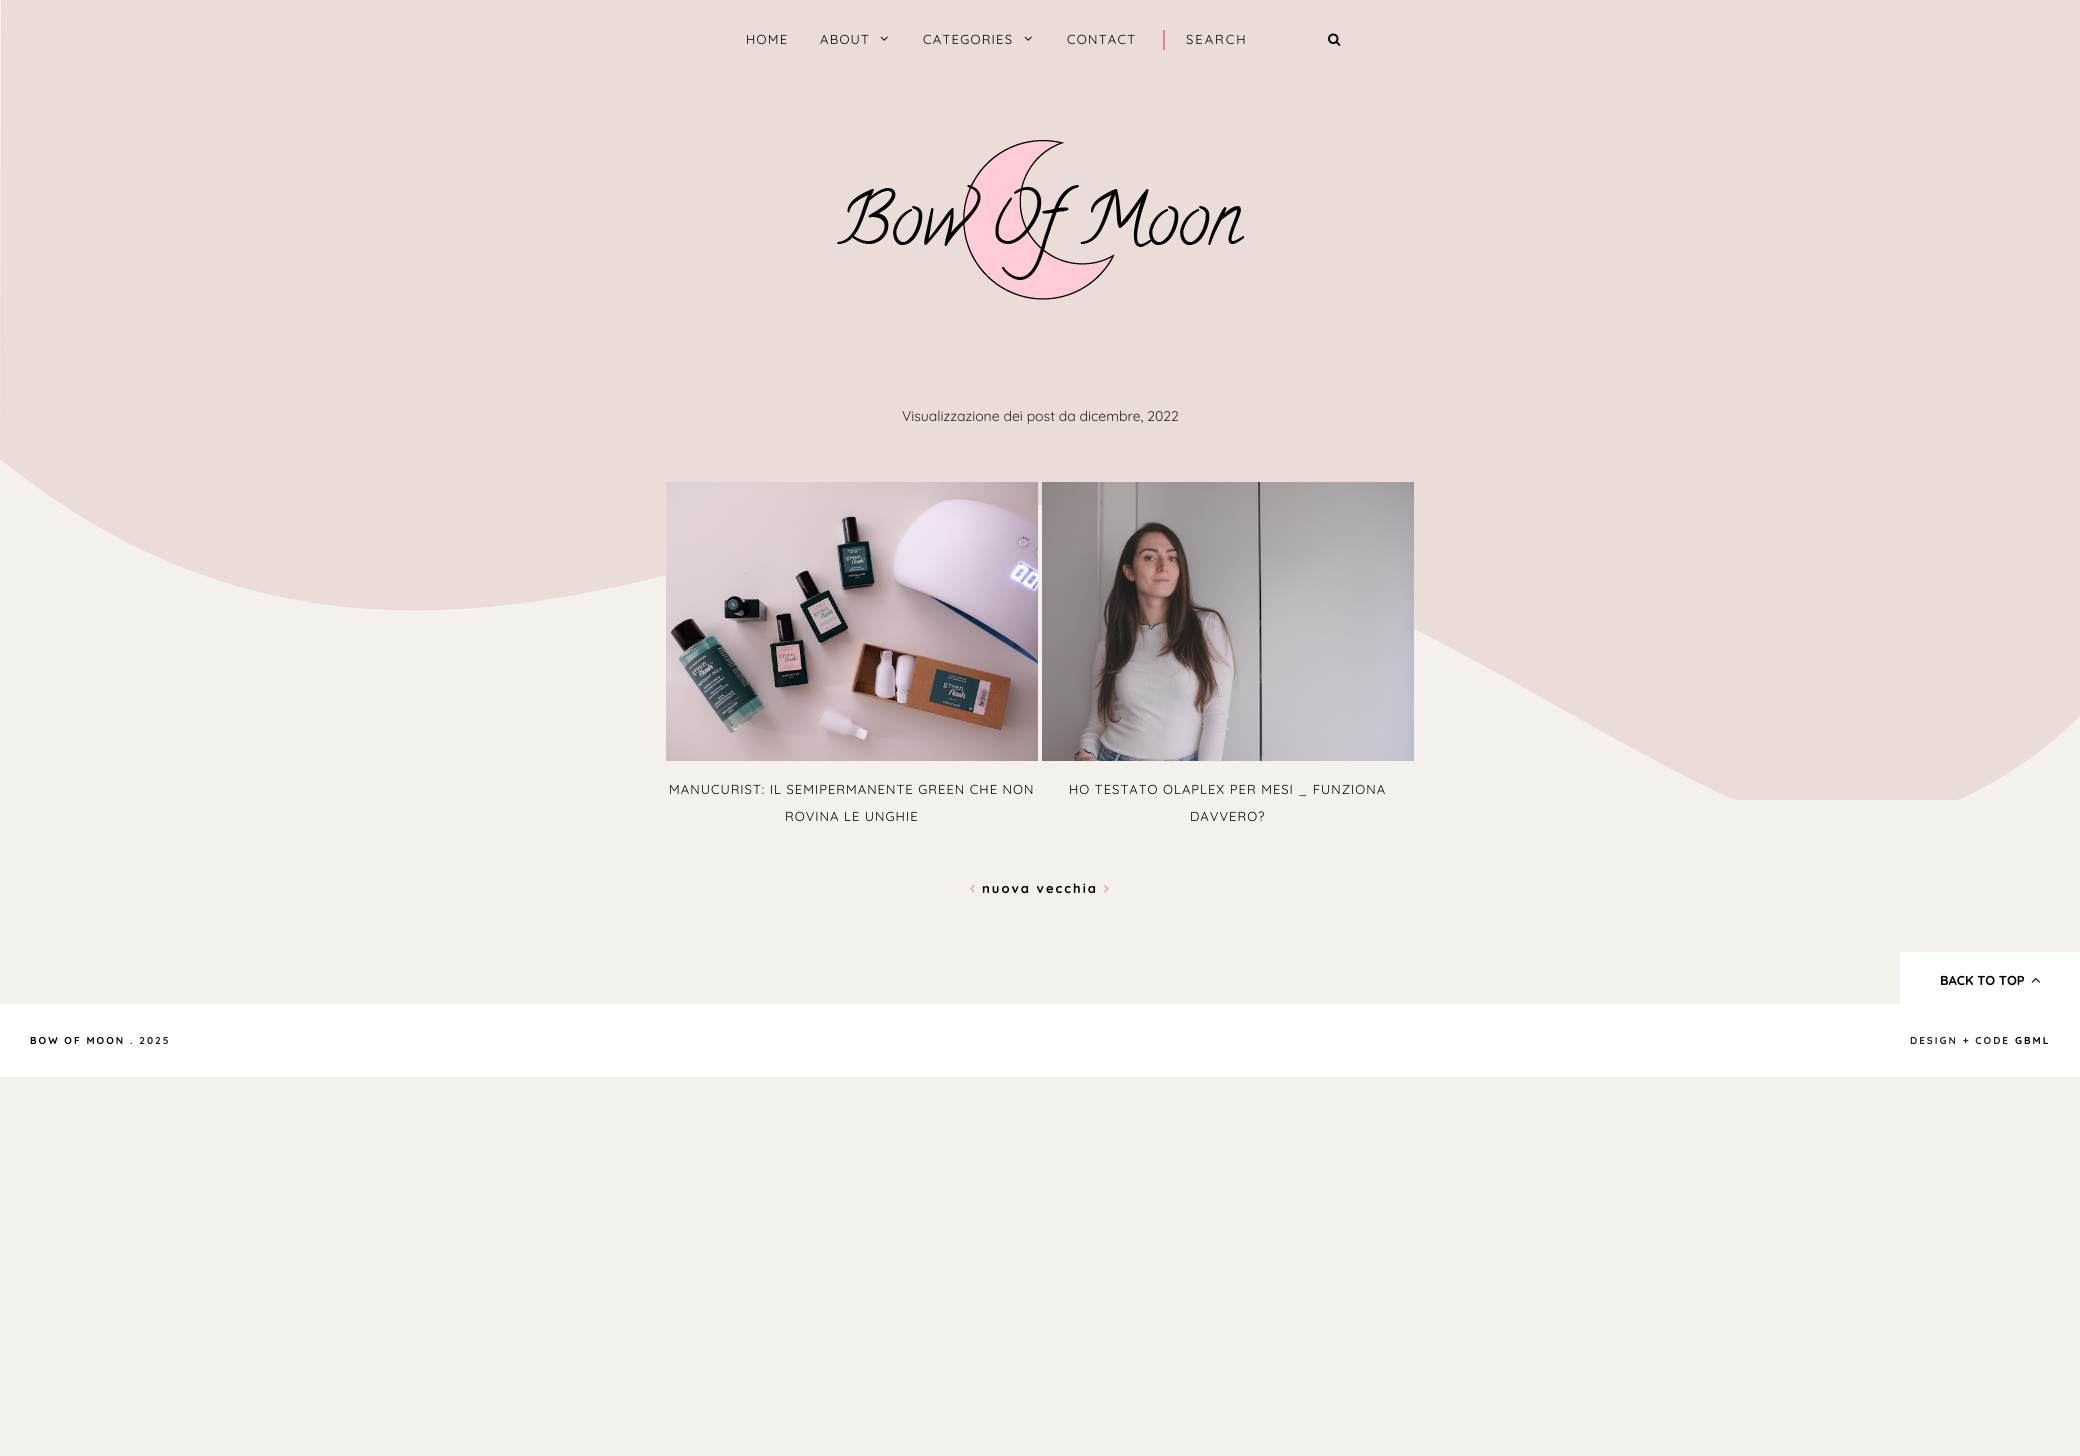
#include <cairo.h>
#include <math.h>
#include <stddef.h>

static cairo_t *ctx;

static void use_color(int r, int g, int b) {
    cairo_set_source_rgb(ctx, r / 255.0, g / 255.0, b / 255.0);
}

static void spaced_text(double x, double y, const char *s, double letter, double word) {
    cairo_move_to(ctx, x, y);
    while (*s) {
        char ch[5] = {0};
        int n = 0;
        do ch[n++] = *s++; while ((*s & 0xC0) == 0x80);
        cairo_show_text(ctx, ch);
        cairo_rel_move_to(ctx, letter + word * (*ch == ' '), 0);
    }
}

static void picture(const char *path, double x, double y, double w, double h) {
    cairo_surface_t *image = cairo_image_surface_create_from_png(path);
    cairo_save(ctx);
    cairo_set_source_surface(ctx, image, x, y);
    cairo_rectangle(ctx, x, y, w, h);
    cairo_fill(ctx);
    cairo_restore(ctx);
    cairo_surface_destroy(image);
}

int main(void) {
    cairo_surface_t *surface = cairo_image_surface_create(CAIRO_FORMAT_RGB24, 2080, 1456);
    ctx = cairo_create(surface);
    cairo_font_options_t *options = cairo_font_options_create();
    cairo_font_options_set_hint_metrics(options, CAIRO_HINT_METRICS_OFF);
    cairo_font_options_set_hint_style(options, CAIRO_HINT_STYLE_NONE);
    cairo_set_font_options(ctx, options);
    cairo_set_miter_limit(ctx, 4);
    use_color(244, 241, 236);
    cairo_paint(ctx);
    cairo_save(ctx);
    cairo_rectangle(ctx, 0, 0, 2080, 800);
    cairo_clip(ctx);
    use_color(236, 220, 216);
    cairo_new_path(ctx);
    cairo_move_to(ctx, 0, 459);
    cairo_curve_to(ctx, 399, 782, 777, 485, 1040, 505);
    cairo_curve_to(ctx, 1302, 525, 1571, 731, 1748, 806);
    cairo_curve_to(ctx, 1925, 881, 2080, 716, 2080, 716);
    cairo_line_to(ctx, 2080, 0);
    cairo_line_to(ctx, 1, 0);
    cairo_close_path(ctx);
    cairo_fill(ctx);
    cairo_restore(ctx);
    cairo_select_font_face(ctx, "Quicksand", CAIRO_FONT_SLANT_NORMAL, CAIRO_FONT_WEIGHT_NORMAL);
    cairo_set_font_size(ctx, 13);
    use_color(0, 0, 0);
    spaced_text(746, 44, "HOME", 1.25, 0);
    spaced_text(820, 44, "ABOUT", 1.25, 0);
    picture("img1.png", 880, 36, 8, 5);
    spaced_text(923, 44, "CATEGORIES", 1.25, 0);
    picture("img1.png", 1024, 36, 8, 5);
    spaced_text(1067, 44, "CONTACT", 1.25, 0);
    use_color(234, 125, 149);
    cairo_rectangle(ctx, 1163, 30, 2, 20);
    cairo_fill(ctx);
    use_color(0, 0, 0);
    spaced_text(1186, 44, "SEARCH", 2, 0);
    picture("img2.png", 1328, 33, 13, 13);
    picture("img3.png", 837, 140, 407, 160);
    cairo_set_font_size(ctx, 14);
    use_color(34, 34, 34);
    cairo_move_to(ctx, 902, 421);
    cairo_show_text(ctx, "Visualizzazione dei post da dicembre, 2022");
    picture("img4.png", 666, 482, 372, 279);
    cairo_set_font_size(ctx, 13);
    use_color(0, 0, 0);
    spaced_text(669, 794, "MANUCURIST: IL SEMIPERMANENTE GREEN CHE NON", 1, 0);
    spaced_text(785, 821, "ROVINA LE UNGHIE", 1, 0);
    picture("img5.png", 1042, 482, 372, 279);
    spaced_text(1069, 794, "HO TESTATO OLAPLEX PER MESI _ FUNZIONA", 1, 0);
    spaced_text(1190, 821, "DAVVERO?", 1, 0);
    picture("img6.png", 970, 885, 5, 8);
    cairo_select_font_face(ctx, "Quicksand", CAIRO_FONT_SLANT_NORMAL, CAIRO_FONT_WEIGHT_BOLD);
    spaced_text(982, 893, "nuova vecchia", 2, 0);
    picture("img7.png", 1104, 885, 5, 8);
    use_color(255, 255, 255);
    cairo_rectangle(ctx, 1900, 952, 180, 52);
    cairo_fill(ctx);
    use_color(0, 0, 0);
    cairo_move_to(ctx, 1940, 985);
    cairo_show_text(ctx, "BACK TO TOP");
    picture("img8.png", 2031, 978, 9, 5);
    use_color(255, 255, 255);
    cairo_rectangle(ctx, 0, 1004, 2080, 73);
    cairo_fill(ctx);
    cairo_set_font_size(ctx, 10);
    use_color(0, 0, 0);
    spaced_text(30, 1044, "BOW OF MOON", 2, 0);
    use_color(34, 34, 34);
    spaced_text(130, 1044, ". 2025", 2, 0);
    spaced_text(1910, 1044, "DESIGN + CODE", 2, 0);
    use_color(0, 0, 0);
    spaced_text(2015, 1044, "GBML", 2, 0);
    cairo_surface_write_to_png(surface, "result.png");
    cairo_font_options_destroy(options);
    cairo_destroy(ctx);
    cairo_surface_destroy(surface);
    return 0;
}
